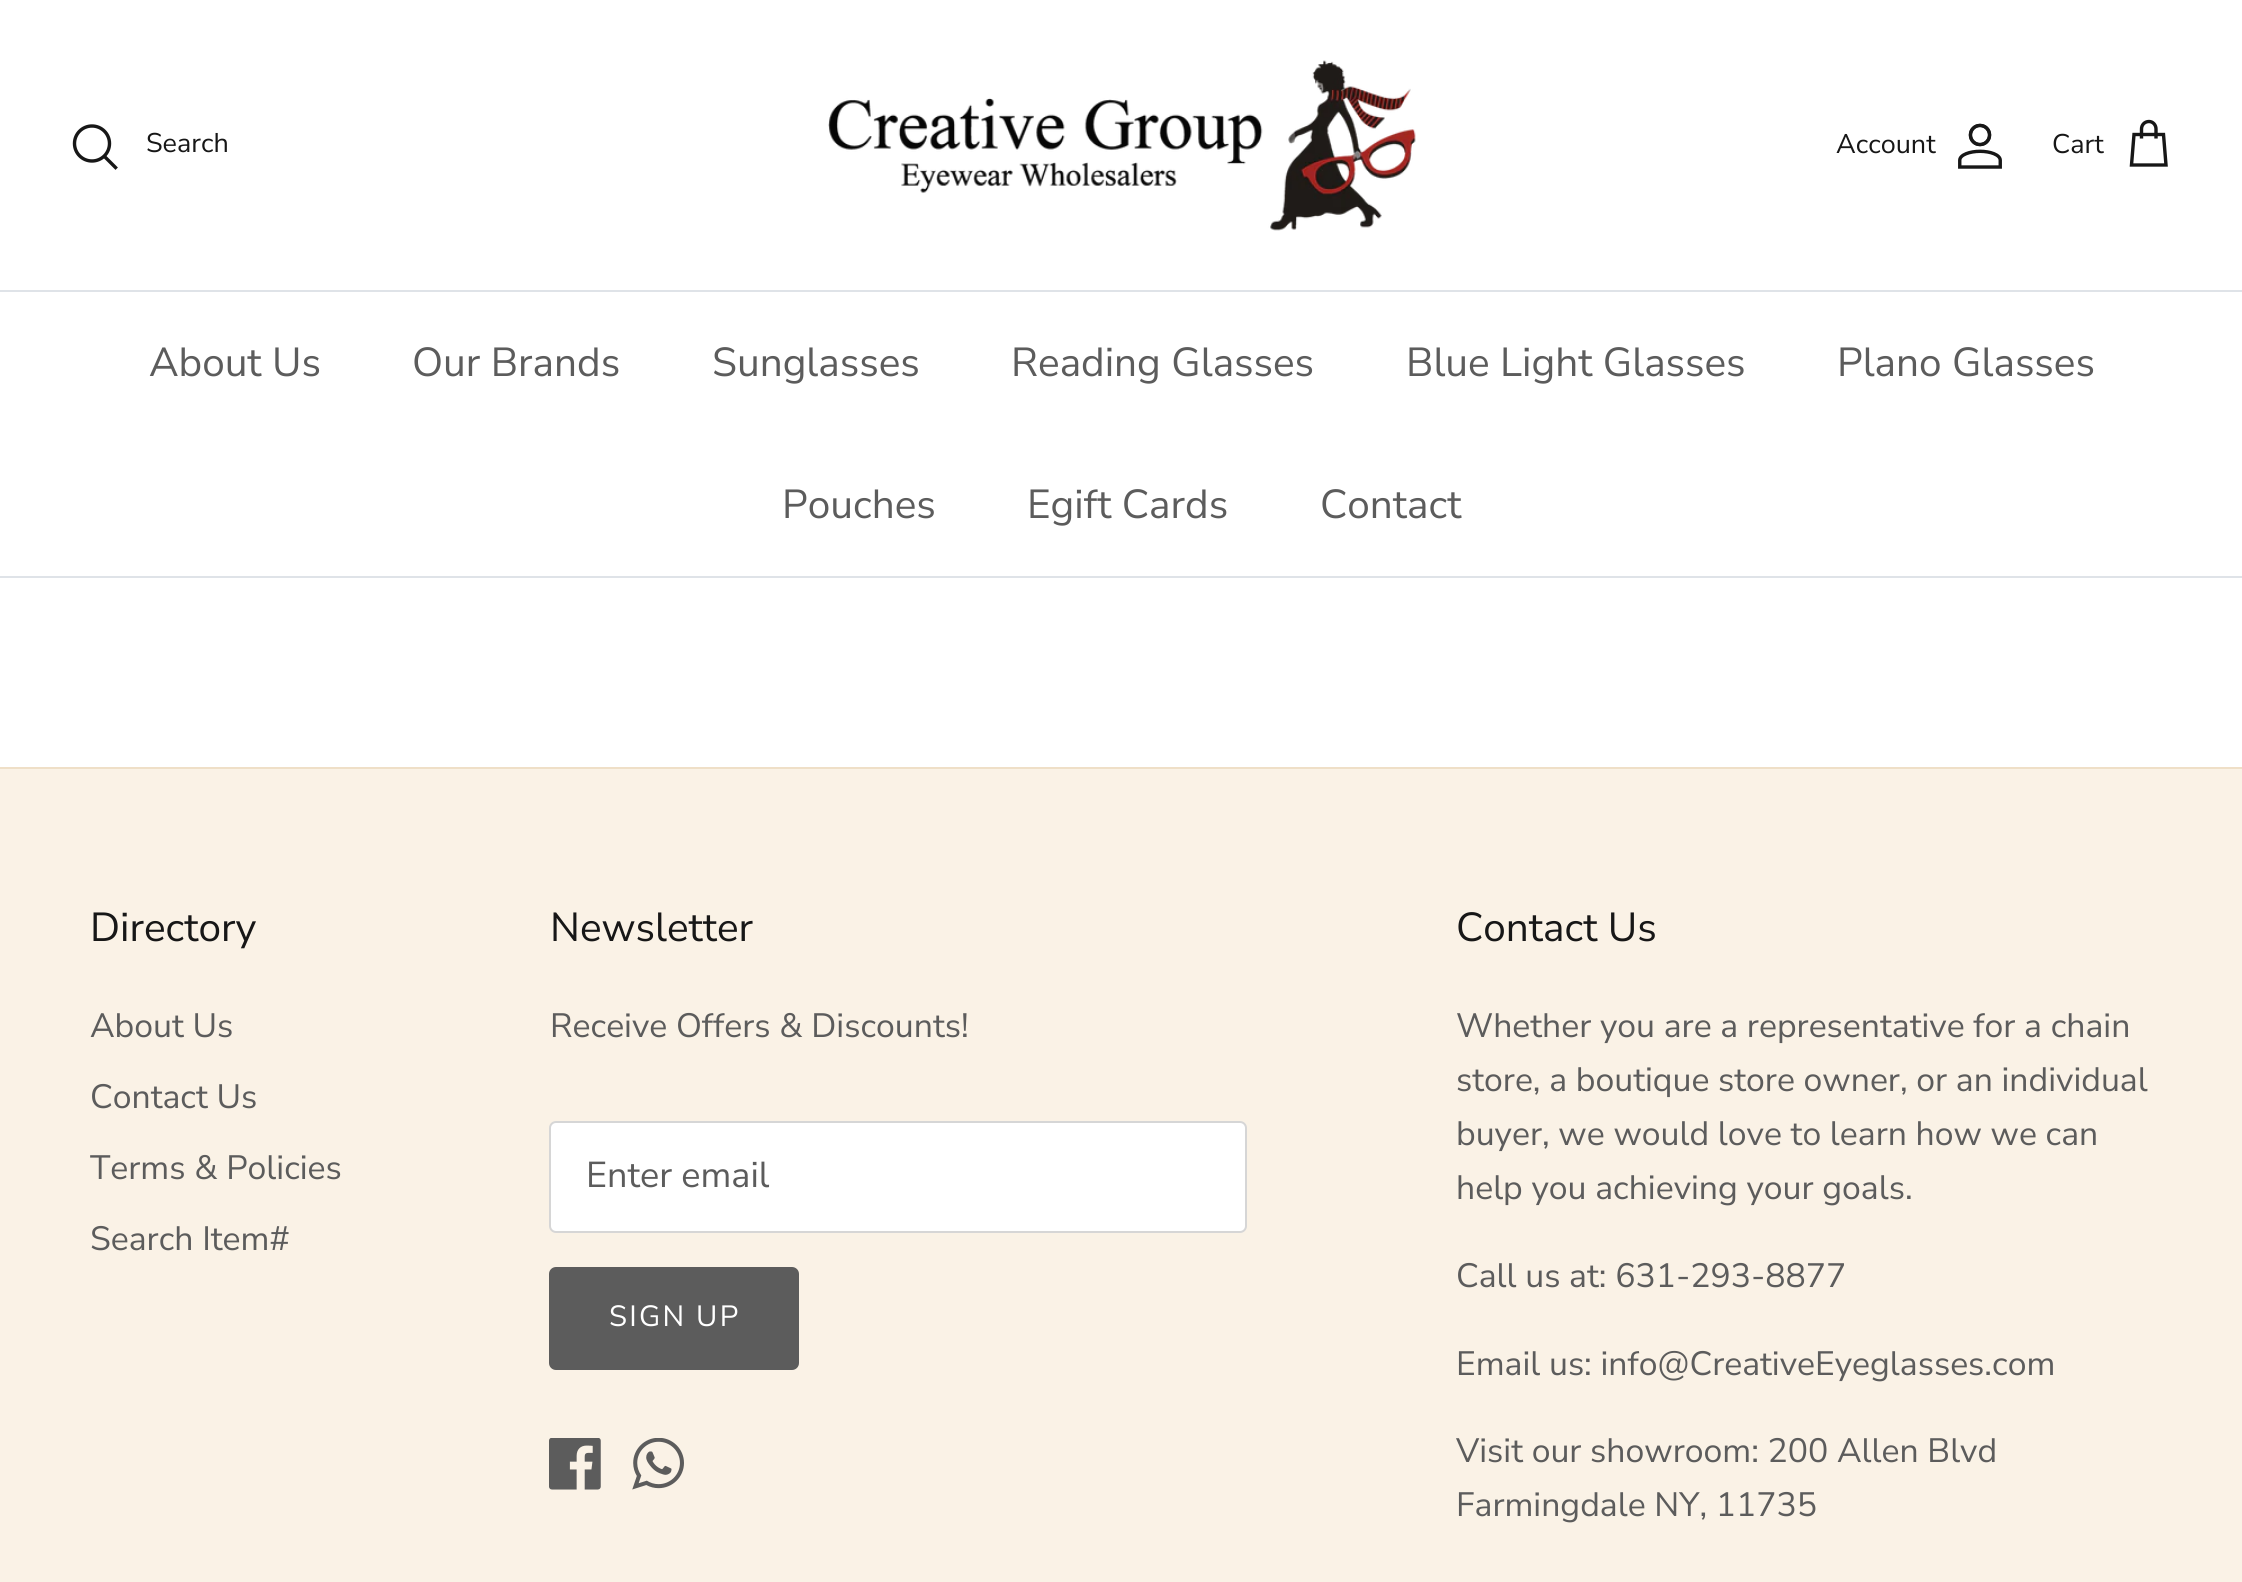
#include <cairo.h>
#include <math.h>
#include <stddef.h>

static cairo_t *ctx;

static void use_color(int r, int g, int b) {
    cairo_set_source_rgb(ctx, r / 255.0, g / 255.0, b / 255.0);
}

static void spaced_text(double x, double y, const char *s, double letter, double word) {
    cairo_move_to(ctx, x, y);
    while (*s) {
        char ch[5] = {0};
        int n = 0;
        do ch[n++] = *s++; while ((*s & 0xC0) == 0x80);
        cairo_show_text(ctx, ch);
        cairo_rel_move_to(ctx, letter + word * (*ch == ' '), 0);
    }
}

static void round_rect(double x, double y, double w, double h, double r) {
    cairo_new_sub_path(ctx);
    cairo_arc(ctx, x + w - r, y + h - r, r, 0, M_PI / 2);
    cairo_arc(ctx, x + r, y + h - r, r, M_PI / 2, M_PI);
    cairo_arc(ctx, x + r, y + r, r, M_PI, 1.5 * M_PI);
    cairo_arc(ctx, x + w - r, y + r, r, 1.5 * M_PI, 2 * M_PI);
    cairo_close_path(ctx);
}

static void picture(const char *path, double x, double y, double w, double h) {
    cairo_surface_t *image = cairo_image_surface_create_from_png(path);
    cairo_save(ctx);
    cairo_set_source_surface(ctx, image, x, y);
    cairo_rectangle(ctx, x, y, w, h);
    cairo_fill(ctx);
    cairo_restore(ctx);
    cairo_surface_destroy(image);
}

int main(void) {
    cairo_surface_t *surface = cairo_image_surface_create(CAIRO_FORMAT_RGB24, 2242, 1582);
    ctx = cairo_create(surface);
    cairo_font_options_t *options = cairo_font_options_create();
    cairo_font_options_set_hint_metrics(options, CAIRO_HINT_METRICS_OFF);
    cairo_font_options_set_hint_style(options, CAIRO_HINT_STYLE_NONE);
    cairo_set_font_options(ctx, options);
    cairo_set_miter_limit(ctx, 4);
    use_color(255, 255, 255);
    cairo_paint(ctx);
    use_color(223, 227, 232);
    cairo_rectangle(ctx, 0, 290, 2242, 2);
    cairo_fill(ctx);
    cairo_arc(ctx, 92, 143.5, 17.5, 0, 2 * M_PI);
    use_color(23, 23, 23);
    cairo_set_line_width(ctx, 3.4);
    cairo_stroke(ctx);
    cairo_select_font_face(ctx, "Nunito Sans", CAIRO_FONT_SLANT_NORMAL, CAIRO_FONT_WEIGHT_NORMAL);
    cairo_set_font_size(ctx, 27);
    cairo_move_to(ctx, 146, 152);
    cairo_show_text(ctx, "Search");
    cairo_new_path(ctx);
    cairo_move_to(ctx, 105.5, 157.5);
    cairo_line_to(ctx, 115.5, 167.5);
    cairo_set_line_cap(ctx, CAIRO_LINE_CAP_SQUARE);
    cairo_stroke(ctx);
    picture("img1.png", 828, 60, 588, 171);
    cairo_move_to(ctx, 1836, 153);
    cairo_show_text(ctx, "Account");
    picture("img2.png", 1958, 123, 44, 46);
    cairo_move_to(ctx, 2052, 153);
    cairo_show_text(ctx, "Cart");
    cairo_new_path(ctx);
    cairo_move_to(ctx, 2156, 138.5);
    cairo_line_to(ctx, 2156, 129);
    cairo_curve_to(ctx, 2156, 125, 2153, 121.5, 2149, 121.5);
    cairo_curve_to(ctx, 2144.5, 121.5, 2141.5, 125, 2141.5, 129);
    cairo_line_to(ctx, 2141.5, 138.5);
    cairo_move_to(ctx, 2134, 134.5);
    cairo_line_to(ctx, 2163.5, 134.5);
    cairo_line_to(ctx, 2166, 165);
    cairo_line_to(ctx, 2131.5, 165);
    cairo_close_path(ctx);
    cairo_set_line_cap(ctx, CAIRO_LINE_CAP_BUTT);
    cairo_stroke(ctx);
    use_color(223, 227, 232);
    cairo_rectangle(ctx, 0, 576, 2242, 2);
    cairo_fill(ctx);
    cairo_set_font_size(ctx, 40.5);
    use_color(92, 92, 92);
    cairo_move_to(ctx, 149, 376);
    cairo_show_text(ctx, "About Us");
    cairo_move_to(ctx, 412, 376);
    cairo_show_text(ctx, "Our Brands");
    cairo_move_to(ctx, 712, 376);
    cairo_show_text(ctx, "Sunglasses");
    cairo_move_to(ctx, 1011, 376);
    cairo_show_text(ctx, "Reading Glasses");
    cairo_move_to(ctx, 1406, 376);
    cairo_show_text(ctx, "Blue Light Glasses");
    cairo_move_to(ctx, 1837, 376);
    cairo_show_text(ctx, "Plano Glasses");
    cairo_move_to(ctx, 782, 518);
    cairo_show_text(ctx, "Pouches");
    cairo_move_to(ctx, 1027, 518);
    cairo_show_text(ctx, "Egift Cards");
    cairo_move_to(ctx, 1320, 518);
    cairo_show_text(ctx, "Contact");
    use_color(250, 242, 230);
    cairo_rectangle(ctx, 0, 769, 2242, 813);
    cairo_fill(ctx);
    use_color(239, 223, 199);
    cairo_rectangle(ctx, 0, 767, 2242, 2);
    cairo_fill(ctx);
    use_color(23, 23, 23);
    cairo_move_to(ctx, 90, 941);
    cairo_show_text(ctx, "Directory");
    cairo_set_font_size(ctx, 33.75);
    use_color(92, 92, 92);
    cairo_move_to(ctx, 90, 1037);
    cairo_show_text(ctx, "About Us");
    cairo_move_to(ctx, 90, 1108);
    cairo_show_text(ctx, "Contact Us");
    cairo_move_to(ctx, 90, 1179);
    cairo_show_text(ctx, "Terms & Policies");
    cairo_move_to(ctx, 90, 1250);
    cairo_show_text(ctx, "Search Item#");
    cairo_set_font_size(ctx, 40.5);
    use_color(23, 23, 23);
    cairo_move_to(ctx, 550, 941);
    cairo_show_text(ctx, "Newsletter");
    cairo_set_font_size(ctx, 33.75);
    use_color(92, 92, 92);
    cairo_move_to(ctx, 550, 1037);
    cairo_show_text(ctx, "Receive Offers & Discounts!");
    use_color(255, 255, 255);
    round_rect(550, 1122, 696, 110, 6);
    cairo_fill_preserve(ctx);
    use_color(214, 214, 214);
    cairo_set_line_width(ctx, 2);
    cairo_stroke(ctx);
    cairo_set_font_size(ctx, 36);
    use_color(92, 92, 92);
    cairo_move_to(ctx, 586, 1187);
    cairo_show_text(ctx, "Enter email");
    round_rect(550, 1268, 248, 101, 6);
    cairo_fill_preserve(ctx);
    cairo_stroke(ctx);
    cairo_set_font_size(ctx, 29.25);
    use_color(255, 255, 255);
    spaced_text(609, 1326, "SIGN UP", 2.25, 0);
    picture("img3.png", 549, 1438, 52, 52);
    picture("img4.png", 632, 1438, 52, 52);
    cairo_set_font_size(ctx, 40.5);
    use_color(23, 23, 23);
    cairo_move_to(ctx, 1456, 941);
    cairo_show_text(ctx, "Contact Us");
    cairo_set_font_size(ctx, 33.75);
    use_color(92, 92, 92);
    cairo_move_to(ctx, 1456, 1037);
    cairo_show_text(ctx, "Whether you are a representative for a chain");
    cairo_move_to(ctx, 1456, 1091);
    cairo_show_text(ctx, "store, a boutique store owner, or an individual");
    cairo_move_to(ctx, 1456, 1145);
    cairo_show_text(ctx, "buyer, we would love to learn how we can");
    cairo_move_to(ctx, 1456, 1199);
    cairo_show_text(ctx, "help you achieving your goals.");
    cairo_move_to(ctx, 1456, 1287);
    cairo_show_text(ctx, "Call us at: 631-293-8877");
    cairo_move_to(ctx, 1456, 1375);
    cairo_show_text(ctx, "Email us: info@CreativeEyeglasses.com");
    cairo_move_to(ctx, 1456, 1462);
    cairo_show_text(ctx, "Visit our showroom: 200 Allen Blvd");
    cairo_move_to(ctx, 1456, 1516);
    cairo_show_text(ctx, "Farmingdale NY, 11735");
    cairo_surface_write_to_png(surface, "result.png");
    cairo_font_options_destroy(options);
    cairo_destroy(ctx);
    cairo_surface_destroy(surface);
    return 0;
}
